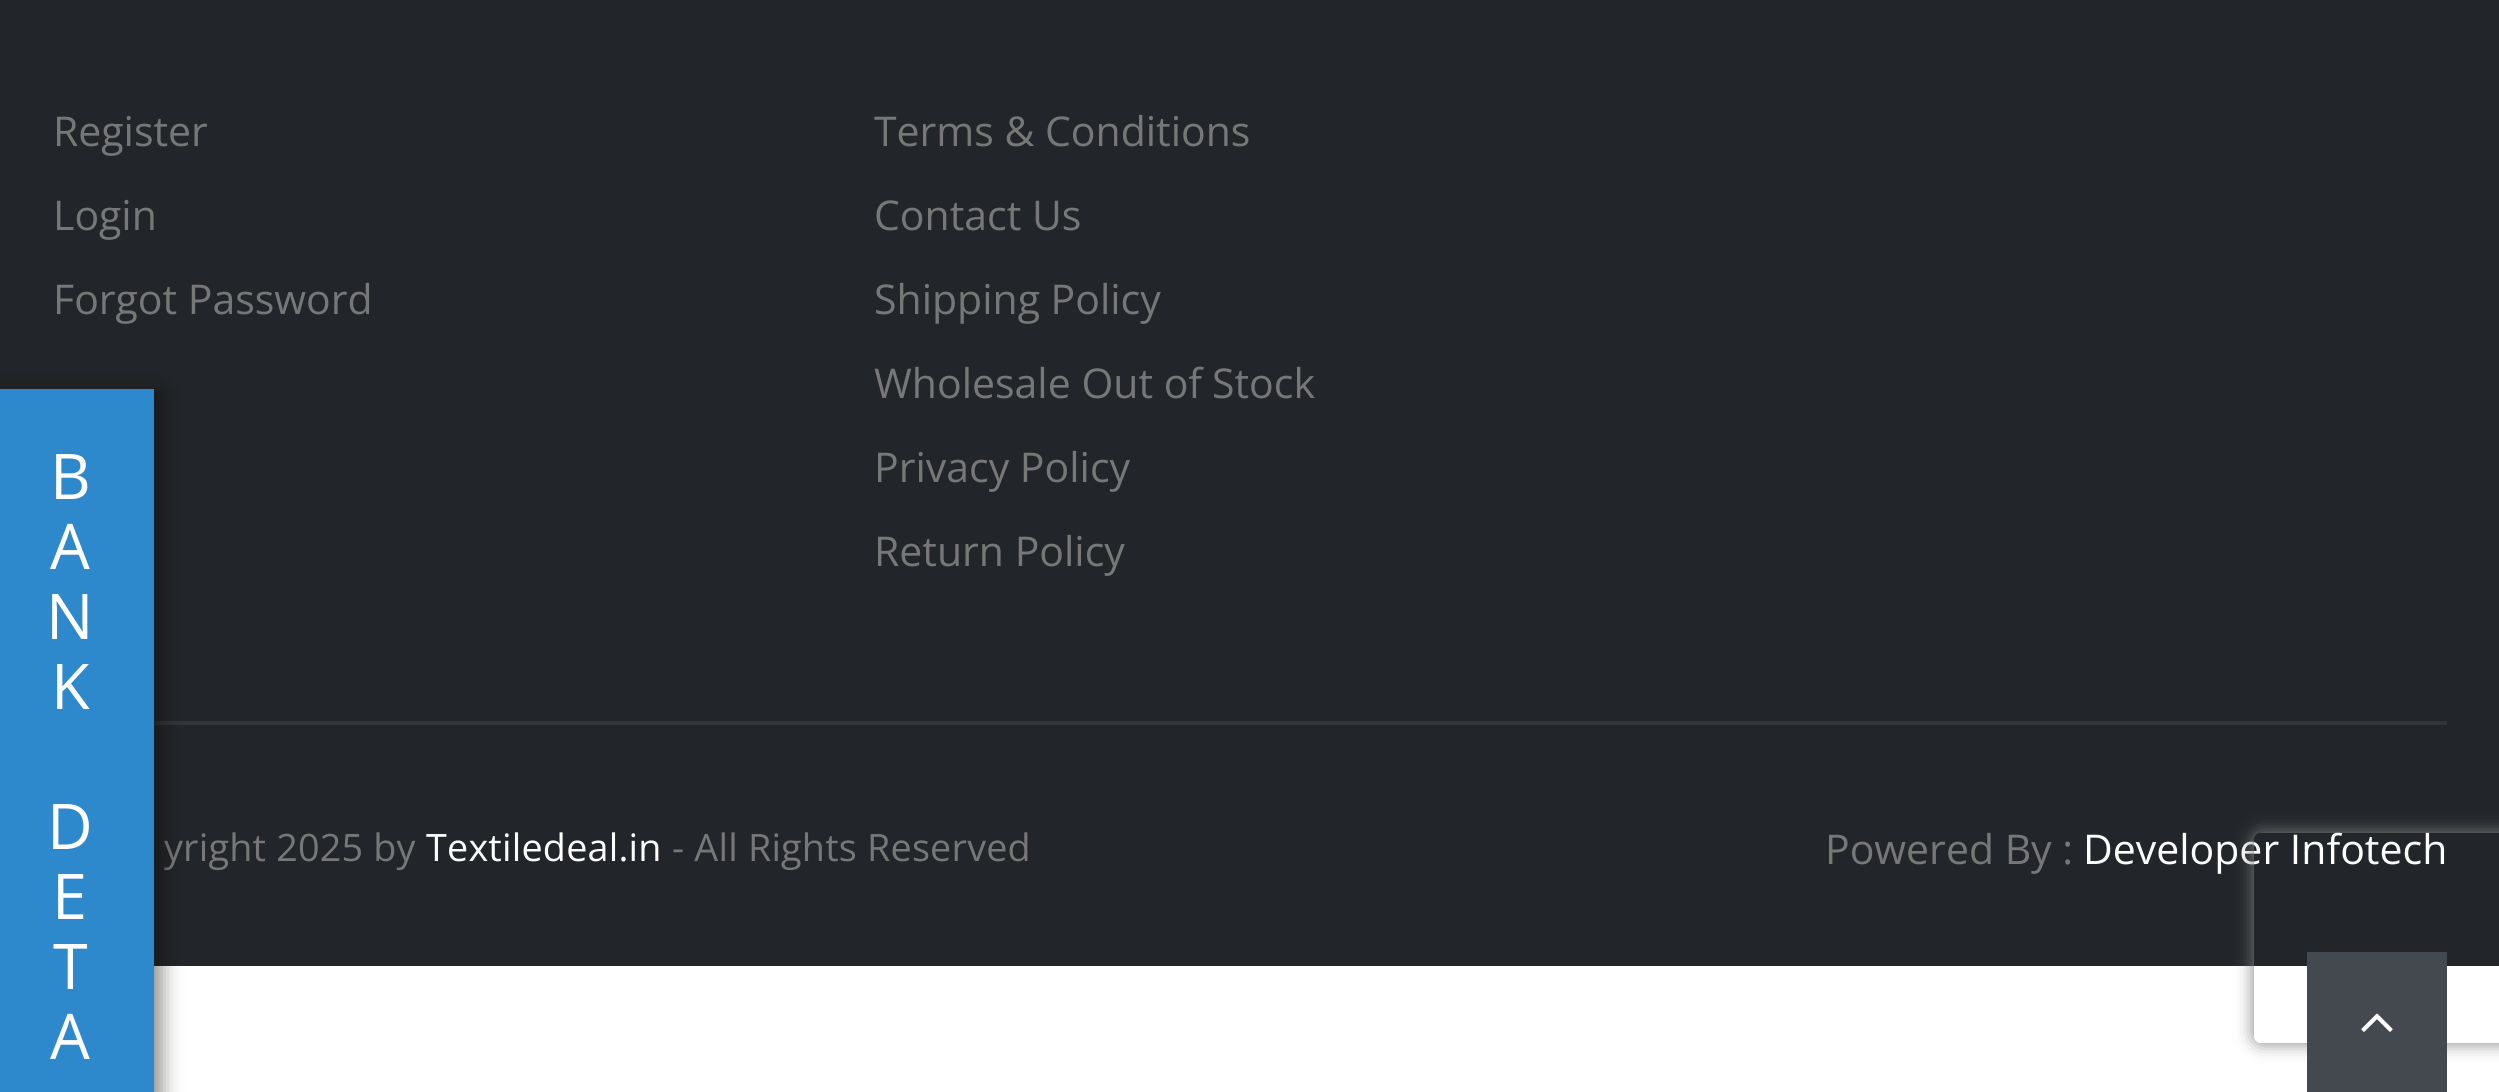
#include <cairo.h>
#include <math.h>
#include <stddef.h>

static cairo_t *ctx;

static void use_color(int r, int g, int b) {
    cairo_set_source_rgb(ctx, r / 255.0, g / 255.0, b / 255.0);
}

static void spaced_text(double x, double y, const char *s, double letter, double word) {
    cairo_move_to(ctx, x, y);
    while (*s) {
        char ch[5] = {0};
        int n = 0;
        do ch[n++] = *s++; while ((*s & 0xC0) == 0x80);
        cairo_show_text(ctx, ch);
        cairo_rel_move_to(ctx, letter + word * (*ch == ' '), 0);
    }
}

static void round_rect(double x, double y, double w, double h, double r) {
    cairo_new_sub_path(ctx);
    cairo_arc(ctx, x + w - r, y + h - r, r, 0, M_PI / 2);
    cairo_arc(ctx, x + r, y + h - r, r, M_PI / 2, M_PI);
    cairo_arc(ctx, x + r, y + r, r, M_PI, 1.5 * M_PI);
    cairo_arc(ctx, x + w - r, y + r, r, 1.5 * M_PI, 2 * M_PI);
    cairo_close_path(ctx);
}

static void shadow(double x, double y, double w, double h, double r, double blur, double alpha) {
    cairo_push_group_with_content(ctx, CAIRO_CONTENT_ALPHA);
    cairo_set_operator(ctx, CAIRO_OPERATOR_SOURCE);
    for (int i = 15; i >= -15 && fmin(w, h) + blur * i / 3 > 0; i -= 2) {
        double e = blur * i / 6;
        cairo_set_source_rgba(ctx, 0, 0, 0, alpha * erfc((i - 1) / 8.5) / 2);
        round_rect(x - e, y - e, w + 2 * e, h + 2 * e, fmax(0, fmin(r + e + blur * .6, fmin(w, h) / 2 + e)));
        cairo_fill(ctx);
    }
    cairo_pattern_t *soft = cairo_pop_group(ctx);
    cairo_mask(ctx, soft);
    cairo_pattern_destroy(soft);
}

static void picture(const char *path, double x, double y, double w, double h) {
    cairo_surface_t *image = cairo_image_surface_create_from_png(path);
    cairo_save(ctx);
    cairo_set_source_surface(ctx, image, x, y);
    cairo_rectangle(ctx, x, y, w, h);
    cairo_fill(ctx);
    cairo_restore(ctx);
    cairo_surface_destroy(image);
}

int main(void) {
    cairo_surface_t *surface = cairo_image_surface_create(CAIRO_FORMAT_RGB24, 2499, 1092);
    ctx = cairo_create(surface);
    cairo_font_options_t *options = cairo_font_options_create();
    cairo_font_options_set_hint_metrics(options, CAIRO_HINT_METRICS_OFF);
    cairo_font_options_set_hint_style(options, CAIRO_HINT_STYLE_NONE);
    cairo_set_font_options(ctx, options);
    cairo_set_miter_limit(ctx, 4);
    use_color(255, 255, 255);
    cairo_paint(ctx);
    use_color(34, 37, 41);
    cairo_rectangle(ctx, 0, 0, 2499, 966);
    cairo_fill(ctx);
    cairo_select_font_face(ctx, "Open Sans", CAIRO_FONT_SLANT_NORMAL, CAIRO_FONT_WEIGHT_NORMAL);
    cairo_set_font_size(ctx, 41);
    use_color(119, 119, 119);
    cairo_move_to(ctx, 53, 146);
    cairo_show_text(ctx, "Register");
    cairo_move_to(ctx, 53, 230);
    cairo_show_text(ctx, "Login");
    cairo_move_to(ctx, 53, 314);
    cairo_show_text(ctx, "Forgot Password");
    cairo_move_to(ctx, 874, 146);
    cairo_show_text(ctx, "Terms & Conditions");
    cairo_move_to(ctx, 874, 230);
    cairo_show_text(ctx, "Contact Us");
    cairo_move_to(ctx, 874, 314);
    cairo_show_text(ctx, "Shipping Policy");
    cairo_move_to(ctx, 874, 398);
    cairo_show_text(ctx, "Wholesale Out of");
    cairo_move_to(ctx, 1212, 398);
    cairo_show_text(ctx, "Stock");
    cairo_move_to(ctx, 874, 482);
    cairo_show_text(ctx, "Privacy Policy");
    cairo_move_to(ctx, 874, 566);
    cairo_show_text(ctx, "Return Policy");
    use_color(49, 52, 56);
    cairo_rectangle(ctx, 154, 721, 2293, 4);
    cairo_fill(ctx);
    cairo_set_font_size(ctx, 37.75);
    use_color(119, 119, 119);
    spaced_text(164, 861, "yright 2025 by", 0.2, 0);
    use_color(255, 255, 255);
    spaced_text(426, 861, "Textiledeal.in", 0.2, 0);
    use_color(119, 119, 119);
    spaced_text(672, 861, "- All Rights Reserved", 0.2, 0);
    cairo_set_font_size(ctx, 41);
    cairo_move_to(ctx, 1825, 864);
    cairo_show_text(ctx, "Powered By :");
    use_color(255, 255, 255);
    cairo_move_to(ctx, 2083, 864);
    cairo_show_text(ctx, "Developer Infotech");
    use_color(10, 10, 0);
    shadow(-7, 392, 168, 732, 0, 10.5, 0.5);
    cairo_rectangle(ctx, -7, 396, 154, 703);
    use_color(45, 136, 204);
    cairo_set_line_width(ctx, 14);
    cairo_stroke(ctx);
    cairo_rectangle(ctx, 0, 403, 140, 689);
    cairo_fill(ctx);
    cairo_set_font_size(ctx, 63);
    use_color(255, 255, 255);
    cairo_move_to(ctx, 50, 499);
    cairo_show_text(ctx, "B");
    cairo_move_to(ctx, 50, 569);
    cairo_show_text(ctx, "A");
    cairo_move_to(ctx, 46, 639);
    cairo_show_text(ctx, "N");
    cairo_move_to(ctx, 51, 709);
    cairo_show_text(ctx, "K");
    cairo_move_to(ctx, 47, 849);
    cairo_show_text(ctx, "D");
    cairo_move_to(ctx, 52, 919);
    cairo_show_text(ctx, "E");
    cairo_move_to(ctx, 53, 989);
    cairo_show_text(ctx, "T");
    cairo_move_to(ctx, 50, 1059);
    cairo_show_text(ctx, "A");
    cairo_save(ctx);
    cairo_set_fill_rule(ctx, CAIRO_FILL_RULE_EVEN_ODD);
    cairo_new_path(ctx);
    cairo_move_to(ctx, 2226, 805);
    cairo_line_to(ctx, 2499, 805);
    cairo_line_to(ctx, 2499, 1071);
    cairo_line_to(ctx, 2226, 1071);
    cairo_close_path(ctx);
    cairo_move_to(ctx, 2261, 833);
    cairo_line_to(ctx, 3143, 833);
    cairo_curve_to(ctx, 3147, 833, 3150, 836, 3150, 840);
    cairo_line_to(ctx, 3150, 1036);
    cairo_curve_to(ctx, 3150, 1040, 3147, 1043, 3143, 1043);
    cairo_line_to(ctx, 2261, 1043);
    cairo_curve_to(ctx, 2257, 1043, 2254, 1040, 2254, 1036);
    cairo_line_to(ctx, 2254, 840);
    cairo_curve_to(ctx, 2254, 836, 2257, 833, 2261, 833);
    cairo_close_path(ctx);
    cairo_clip(ctx);
    use_color(128, 128, 128);
    shadow(2254, 833, 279, 210, 7, 9, 1);
    cairo_restore(ctx);
    use_color(67, 73, 78);
    cairo_rectangle(ctx, 2307, 952, 140, 140);
    cairo_fill(ctx);
    picture("img1.png", 2361, 1013, 32, 19);
    cairo_surface_write_to_png(surface, "result.png");
    cairo_font_options_destroy(options);
    cairo_destroy(ctx);
    cairo_surface_destroy(surface);
    return 0;
}
